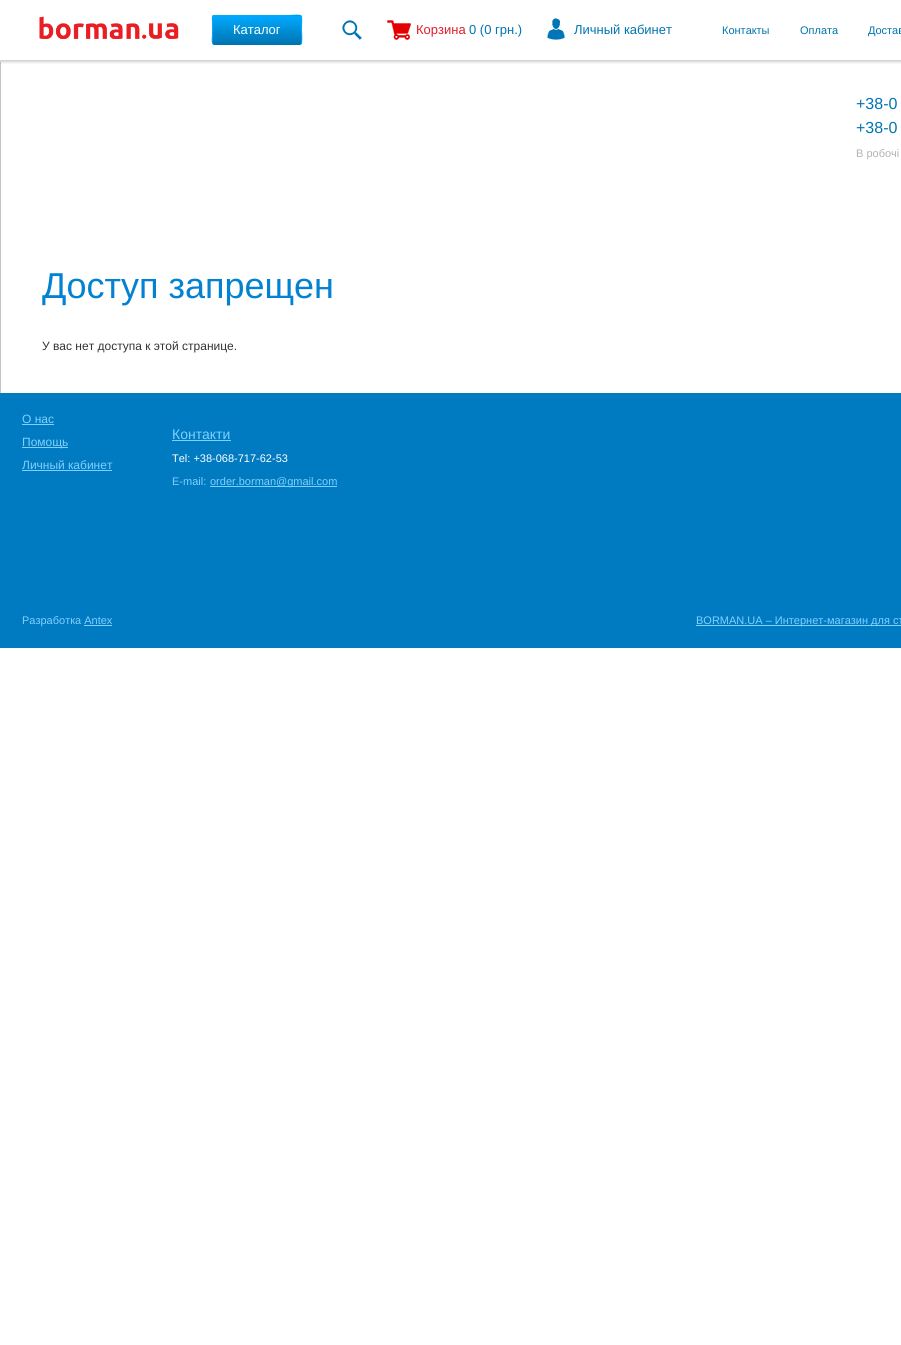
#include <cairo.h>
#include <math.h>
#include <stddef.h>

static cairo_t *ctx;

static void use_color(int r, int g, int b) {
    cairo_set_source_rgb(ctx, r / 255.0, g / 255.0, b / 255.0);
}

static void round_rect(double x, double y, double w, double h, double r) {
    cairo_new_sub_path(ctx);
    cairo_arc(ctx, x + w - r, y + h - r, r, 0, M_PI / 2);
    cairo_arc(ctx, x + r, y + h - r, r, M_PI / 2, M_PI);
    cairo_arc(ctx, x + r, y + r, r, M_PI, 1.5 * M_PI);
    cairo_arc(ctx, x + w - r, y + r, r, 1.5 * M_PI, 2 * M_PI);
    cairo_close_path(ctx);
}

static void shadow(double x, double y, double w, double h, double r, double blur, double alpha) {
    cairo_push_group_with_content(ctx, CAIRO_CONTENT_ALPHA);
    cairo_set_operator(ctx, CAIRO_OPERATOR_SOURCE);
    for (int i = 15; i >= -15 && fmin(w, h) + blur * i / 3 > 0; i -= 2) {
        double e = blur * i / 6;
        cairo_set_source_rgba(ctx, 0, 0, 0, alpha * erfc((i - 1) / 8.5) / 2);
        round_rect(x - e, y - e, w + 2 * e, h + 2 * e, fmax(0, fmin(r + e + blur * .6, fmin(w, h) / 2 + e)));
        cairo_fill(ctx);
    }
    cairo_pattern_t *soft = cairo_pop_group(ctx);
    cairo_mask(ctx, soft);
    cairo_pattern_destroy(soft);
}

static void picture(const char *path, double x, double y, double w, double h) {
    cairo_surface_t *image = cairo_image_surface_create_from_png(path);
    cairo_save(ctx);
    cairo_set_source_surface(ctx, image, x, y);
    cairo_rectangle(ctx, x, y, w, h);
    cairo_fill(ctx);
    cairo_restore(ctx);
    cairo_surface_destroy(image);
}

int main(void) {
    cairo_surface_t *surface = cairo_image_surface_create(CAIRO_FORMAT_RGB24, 901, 1345);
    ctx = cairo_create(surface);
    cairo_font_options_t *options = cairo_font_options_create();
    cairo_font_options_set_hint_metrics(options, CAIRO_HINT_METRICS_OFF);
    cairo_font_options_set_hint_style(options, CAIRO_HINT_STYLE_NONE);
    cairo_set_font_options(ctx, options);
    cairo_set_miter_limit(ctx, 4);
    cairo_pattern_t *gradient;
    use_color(255, 255, 255);
    cairo_paint(ctx);
    use_color(197, 197, 197);
    cairo_rectangle(ctx, 0, 60, 1, 333);
    cairo_fill(ctx);
    use_color(255, 255, 255);
    cairo_rectangle(ctx, 0, 60, 1, 2);
    cairo_fill(ctx);
    cairo_save(ctx);
    cairo_rectangle(ctx, 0, 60, 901, 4);
    cairo_clip(ctx);
    use_color(0, 0, 0);
    shadow(-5, 2, 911, 60, 0, 1.5, 0.2);
    cairo_restore(ctx);
    picture("img1.png", 39, 16, 140, 23);
    cairo_save(ctx);
    round_rect(212, 15, 90, 30, 2);
    cairo_clip(ctx);
    gradient = cairo_pattern_create_linear(257, -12, 257, 16);
    cairo_pattern_add_color_stop_rgba(gradient, 0, 0, 0.667, 1, 1);
    cairo_pattern_add_color_stop_rgba(gradient, 1, 0, 0.455, 0.698, 1);
    cairo_set_source(ctx, gradient);
    cairo_pattern_destroy(gradient);
    cairo_rectangle(ctx, 212, 15, 90, 1);
    cairo_fill(ctx);
    gradient = cairo_pattern_create_linear(257, 16, 257, 44);
    cairo_pattern_add_color_stop_rgba(gradient, 0, 0, 0.667, 1, 1);
    cairo_pattern_add_color_stop_rgba(gradient, 1, 0, 0.455, 0.698, 1);
    cairo_set_source(ctx, gradient);
    cairo_pattern_destroy(gradient);
    cairo_rectangle(ctx, 212, 16, 90, 28);
    cairo_fill(ctx);
    cairo_restore(ctx);
    cairo_new_path(ctx);
    cairo_move_to(ctx, 301, 44);
    cairo_line_to(ctx, 300, 44.5);
    cairo_line_to(ctx, 214, 44.5);
    cairo_line_to(ctx, 213, 44);
    use_color(0, 116, 178);
    cairo_set_line_width(ctx, 1);
    cairo_stroke(ctx);
    cairo_new_path(ctx);
    cairo_move_to(ctx, 213, 44);
    cairo_curve_to(ctx, 211.5, 42.5, 212.5, 36.5, 212.5, 34.5);
    cairo_line_to(ctx, 212.5, 21.5);
    cairo_curve_to(ctx, 212.5, 21, 211.5, 15.5, 214, 15.5);
    cairo_line_to(ctx, 285.5, 15.5);
    cairo_curve_to(ctx, 305, 15.5, 301.5, 11.5, 301.5, 30);
    cairo_curve_to(ctx, 301.5, 32, 302.5, 42.5, 301, 44);
    use_color(0, 170, 255);
    cairo_stroke(ctx);
    cairo_select_font_face(ctx, "Liberation Sans", CAIRO_FONT_SLANT_NORMAL, CAIRO_FONT_WEIGHT_NORMAL);
    cairo_set_font_size(ctx, 13);
    use_color(255, 255, 255);
    cairo_move_to(ctx, 233, 34);
    cairo_show_text(ctx, "Каталог");
    picture("img2.png", 342, 20, 20, 20);
    picture("img3.png", 387, 20, 24, 20);
    use_color(224, 30, 44);
    cairo_move_to(ctx, 416, 34);
    cairo_show_text(ctx, "Корзина");
    use_color(0, 116, 178);
    cairo_move_to(ctx, 469, 34);
    cairo_show_text(ctx, "0 (0 грн.)");
    picture("img4.png", 547, 18, 18, 22);
    cairo_move_to(ctx, 574, 34);
    cairo_show_text(ctx, "Личный кабинет");
    cairo_set_font_size(ctx, 11);
    cairo_move_to(ctx, 722, 34);
    cairo_show_text(ctx, "Контакты");
    cairo_move_to(ctx, 800, 34);
    cairo_show_text(ctx, "Оплата");
    cairo_move_to(ctx, 868, 34);
    cairo_show_text(ctx, "Достав");
    cairo_set_font_size(ctx, 16);
    cairo_move_to(ctx, 856, 109);
    cairo_show_text(ctx, "+38-0");
    cairo_move_to(ctx, 856, 133);
    cairo_show_text(ctx, "+38-0");
    cairo_set_font_size(ctx, 11);
    use_color(178, 178, 178);
    cairo_move_to(ctx, 856, 157);
    cairo_show_text(ctx, "В робочі");
    cairo_set_font_size(ctx, 36);
    use_color(3, 130, 210);
    cairo_move_to(ctx, 42, 298);
    cairo_show_text(ctx, "Доступ запрещен");
    cairo_set_font_size(ctx, 12);
    use_color(51, 51, 51);
    cairo_move_to(ctx, 42, 350);
    cairo_show_text(ctx, "У вас нет доступа к этой странице.");
    use_color(0, 122, 193);
    cairo_rectangle(ctx, 0, 393, 901, 255);
    cairo_fill(ctx);
    use_color(127, 208, 255);
    cairo_move_to(ctx, 22, 423);
    cairo_show_text(ctx, "О нас");
    cairo_rectangle(ctx, 22, 424, 32, 1);
    cairo_fill(ctx);
    cairo_rectangle(ctx, 22, 447, 46, 1);
    cairo_fill(ctx);
    cairo_move_to(ctx, 22, 446);
    cairo_show_text(ctx, "Помощь");
    cairo_move_to(ctx, 22, 469);
    cairo_show_text(ctx, "Личный кабинет");
    cairo_rectangle(ctx, 22, 470, 90, 1);
    cairo_fill(ctx);
    cairo_set_font_size(ctx, 14);
    cairo_move_to(ctx, 172, 439);
    cairo_show_text(ctx, "Контакти");
    cairo_rectangle(ctx, 172, 440, 59, 1);
    cairo_fill(ctx);
    cairo_set_font_size(ctx, 11);
    use_color(255, 255, 255);
    cairo_move_to(ctx, 172, 462);
    cairo_show_text(ctx, "Tel: +38-068-717-62-53");
    use_color(127, 208, 255);
    cairo_move_to(ctx, 172, 485);
    cairo_show_text(ctx, "E-mail:");
    cairo_rectangle(ctx, 210, 486, 127, 1);
    cairo_fill(ctx);
    cairo_move_to(ctx, 210, 485);
    cairo_show_text(ctx, "order.borman@gmail.com");
    cairo_move_to(ctx, 22, 624);
    cairo_show_text(ctx, "Разработка Antex");
    cairo_rectangle(ctx, 84, 625, 28, 1);
    cairo_fill(ctx);
    cairo_rectangle(ctx, 696, 625, 205, 1);
    cairo_fill(ctx);
    cairo_move_to(ctx, 696, 624);
    cairo_show_text(ctx, "BORMAN.UA – Интернет-магазин для ст");
    cairo_surface_write_to_png(surface, "result.png");
    cairo_font_options_destroy(options);
    cairo_destroy(ctx);
    cairo_surface_destroy(surface);
    return 0;
}
